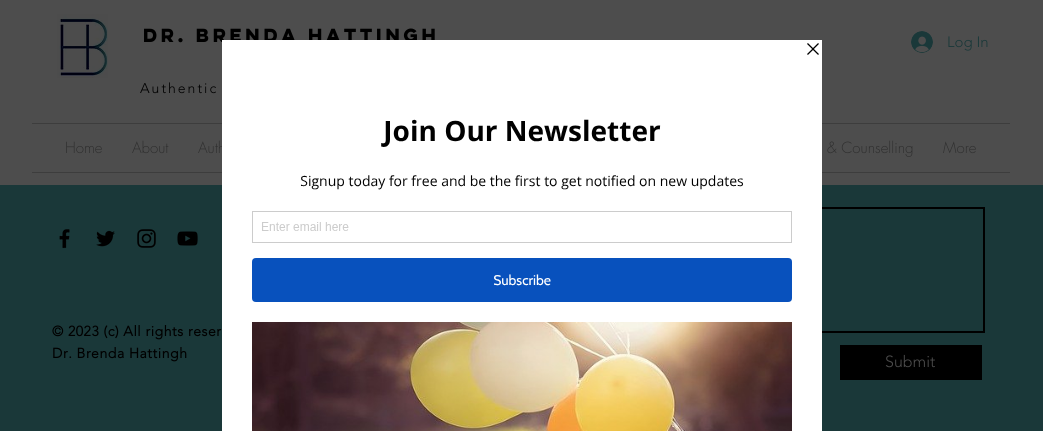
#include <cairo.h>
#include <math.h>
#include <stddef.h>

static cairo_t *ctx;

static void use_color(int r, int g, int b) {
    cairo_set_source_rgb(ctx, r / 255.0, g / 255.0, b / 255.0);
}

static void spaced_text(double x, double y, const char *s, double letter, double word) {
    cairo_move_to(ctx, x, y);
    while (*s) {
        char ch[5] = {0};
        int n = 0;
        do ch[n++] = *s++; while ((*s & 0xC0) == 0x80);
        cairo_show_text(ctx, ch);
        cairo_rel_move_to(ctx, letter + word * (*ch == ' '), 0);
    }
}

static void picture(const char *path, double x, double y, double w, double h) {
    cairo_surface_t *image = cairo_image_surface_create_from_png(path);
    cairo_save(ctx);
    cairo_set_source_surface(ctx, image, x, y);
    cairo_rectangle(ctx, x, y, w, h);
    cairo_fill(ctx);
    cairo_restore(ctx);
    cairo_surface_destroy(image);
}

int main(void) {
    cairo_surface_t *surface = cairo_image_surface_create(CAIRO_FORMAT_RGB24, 1043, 431);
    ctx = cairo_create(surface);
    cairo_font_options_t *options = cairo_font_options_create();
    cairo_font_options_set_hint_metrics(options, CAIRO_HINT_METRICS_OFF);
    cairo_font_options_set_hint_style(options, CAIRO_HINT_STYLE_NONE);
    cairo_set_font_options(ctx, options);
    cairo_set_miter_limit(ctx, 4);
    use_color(26, 56, 57);
    cairo_paint(ctx);
    use_color(77, 77, 77);
    cairo_rectangle(ctx, 0, 0, 1043, 185);
    cairo_fill(ctx);
    picture("img1.png", 57, 14, 51, 64);
    cairo_select_font_face(ctx, "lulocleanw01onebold", CAIRO_FONT_SLANT_NORMAL, CAIRO_FONT_WEIGHT_BOLD);
    cairo_set_font_size(ctx, 17);
    use_color(0, 0, 0);
    cairo_move_to(ctx, 143, 42);
    cairo_show_text(ctx, "Dr. BRenda Hattingh");
    picture("img2.png", 911, 31, 22, 22);
    cairo_select_font_face(ctx, "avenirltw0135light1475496 Light", CAIRO_FONT_SLANT_NORMAL, CAIRO_FONT_WEIGHT_NORMAL);
    cairo_set_font_size(ctx, 15);
    use_color(26, 56, 57);
    cairo_move_to(ctx, 947, 47);
    cairo_show_text(ctx, "Log In");
    cairo_set_font_size(ctx, 14);
    use_color(0, 0, 0);
    spaced_text(140, 93, "Authentic", 2, 0);
    use_color(61, 61, 61);
    cairo_rectangle(ctx, 32, 123, 978, 1);
    cairo_fill(ctx);
    cairo_rectangle(ctx, 32, 172, 978, 1);
    cairo_fill(ctx);
    cairo_select_font_face(ctx, "futura Light", CAIRO_FONT_SLANT_NORMAL, CAIRO_FONT_WEIGHT_NORMAL);
    cairo_set_font_size(ctx, 15);
    use_color(47, 47, 47);
    cairo_move_to(ctx, 65, 153);
    cairo_show_text(ctx, "Home");
    cairo_move_to(ctx, 132, 153);
    cairo_show_text(ctx, "About");
    cairo_move_to(ctx, 198, 153);
    cairo_show_text(ctx, "Auth");
    cairo_move_to(ctx, 827, 153);
    cairo_show_text(ctx, "& Counselling");
    cairo_move_to(ctx, 943, 153);
    cairo_show_text(ctx, "More");
    picture("img3.png", 59, 229, 11, 20);
    picture("img4.png", 96, 230, 19, 17);
    picture("img5.png", 137, 229, 19, 19);
    picture("img6.png", 177, 231, 21, 15);
    cairo_select_font_face(ctx, "avenirltw0135light1475496", CAIRO_FONT_SLANT_NORMAL, CAIRO_FONT_WEIGHT_BOLD);
    cairo_set_font_size(ctx, 14);
    use_color(0, 0, 0);
    spaced_text(52, 336, "© 2023 (c) All rights reser", 0.55, 0);
    spaced_text(52, 358, "Dr. Brenda Hattingh", 0.55, 0);
    cairo_rectangle(ctx, 541, 208, 443, 124);
    cairo_stroke(ctx);
    cairo_rectangle(ctx, 840, 345, 142, 35);
    cairo_fill(ctx);
    cairo_select_font_face(ctx, "avenirltw0135light1475496 Light", CAIRO_FONT_SLANT_NORMAL, CAIRO_FONT_WEIGHT_NORMAL);
    cairo_set_font_size(ctx, 16);
    use_color(77, 77, 77);
    cairo_move_to(ctx, 885, 367);
    cairo_show_text(ctx, "Submit");
    picture("img7.png", 222, 40, 600, 391);
    cairo_surface_write_to_png(surface, "result.png");
    cairo_font_options_destroy(options);
    cairo_destroy(ctx);
    cairo_surface_destroy(surface);
    return 0;
}
